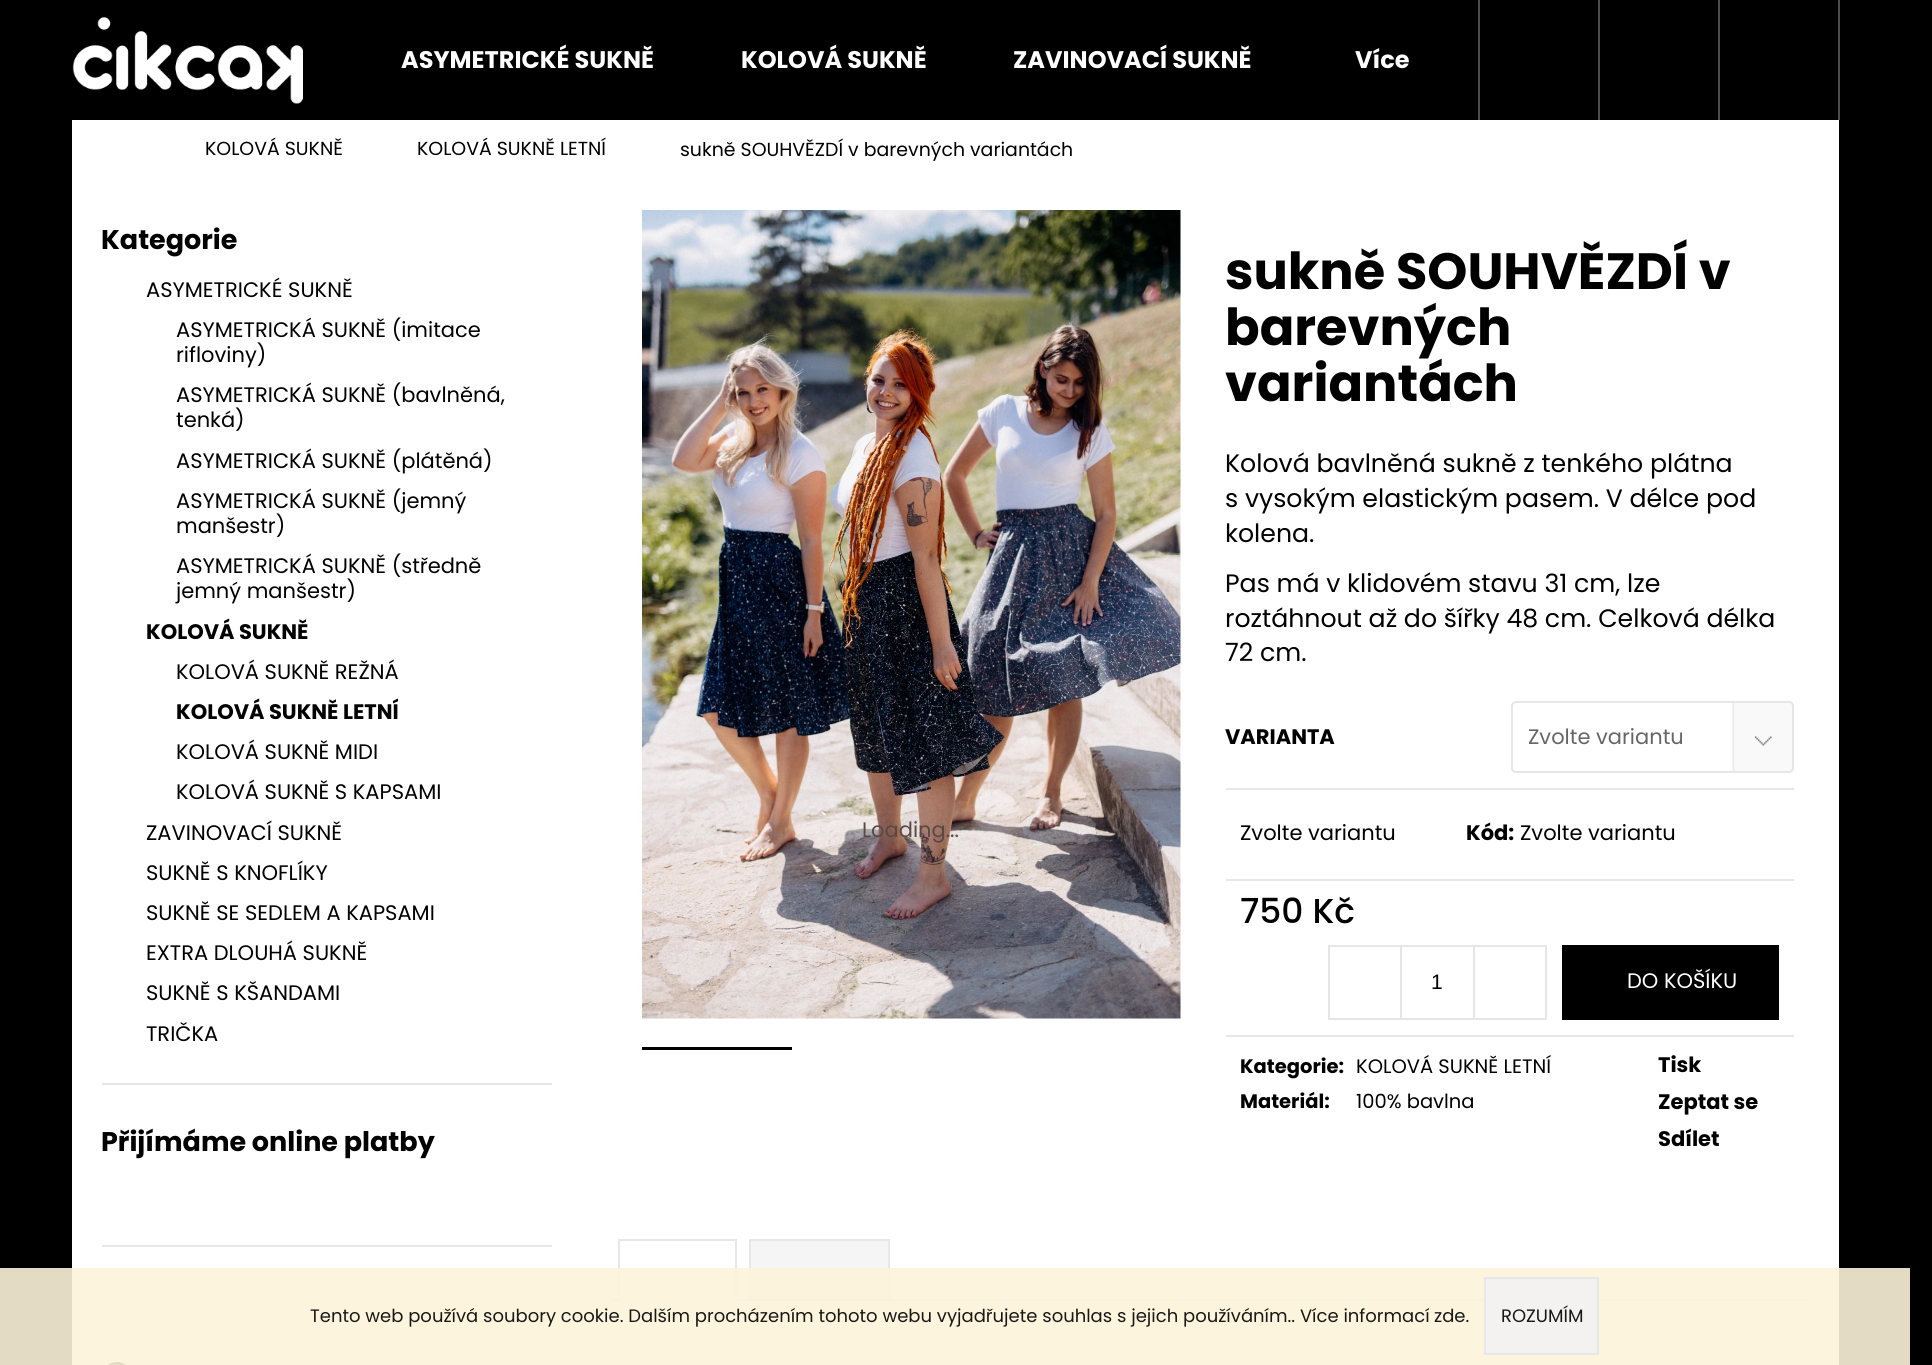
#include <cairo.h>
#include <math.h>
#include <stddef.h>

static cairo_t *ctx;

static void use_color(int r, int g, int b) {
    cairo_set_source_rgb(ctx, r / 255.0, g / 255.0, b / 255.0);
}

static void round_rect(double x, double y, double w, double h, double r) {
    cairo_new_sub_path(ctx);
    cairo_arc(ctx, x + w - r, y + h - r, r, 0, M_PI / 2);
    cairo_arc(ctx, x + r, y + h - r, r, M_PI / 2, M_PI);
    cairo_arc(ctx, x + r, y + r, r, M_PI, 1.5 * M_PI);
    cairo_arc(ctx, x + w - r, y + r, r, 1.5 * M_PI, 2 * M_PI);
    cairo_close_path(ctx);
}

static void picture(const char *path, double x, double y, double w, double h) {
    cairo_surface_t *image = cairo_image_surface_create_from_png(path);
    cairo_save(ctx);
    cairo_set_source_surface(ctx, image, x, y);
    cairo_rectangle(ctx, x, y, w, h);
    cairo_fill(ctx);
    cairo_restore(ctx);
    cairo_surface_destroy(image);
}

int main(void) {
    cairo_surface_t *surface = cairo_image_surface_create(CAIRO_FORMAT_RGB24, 1932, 1365);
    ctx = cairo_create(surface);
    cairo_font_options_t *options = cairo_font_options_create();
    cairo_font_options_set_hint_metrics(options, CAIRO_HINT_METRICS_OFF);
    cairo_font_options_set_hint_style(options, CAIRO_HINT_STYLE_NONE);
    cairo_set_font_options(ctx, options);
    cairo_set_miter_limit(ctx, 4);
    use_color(0, 0, 0);
    cairo_paint(ctx);
    picture("img1.png", 72, 17, 231, 87);
    cairo_select_font_face(ctx, "Poppins", CAIRO_FONT_SLANT_NORMAL, CAIRO_FONT_WEIGHT_BOLD);
    cairo_set_font_size(ctx, 24);
    use_color(255, 255, 255);
    cairo_move_to(ctx, 401, 68);
    cairo_show_text(ctx, "ASYMETRICKÉ SUKNĚ");
    cairo_move_to(ctx, 741, 68);
    cairo_show_text(ctx, "KOLOVÁ SUKNĚ");
    cairo_move_to(ctx, 1013, 68);
    cairo_show_text(ctx, "ZAVINOVACÍ SUKNĚ");
    cairo_move_to(ctx, 1355, 68);
    cairo_show_text(ctx, "Více");
    use_color(77, 77, 77);
    cairo_rectangle(ctx, 1838, 0, 2, 120);
    cairo_fill(ctx);
    cairo_rectangle(ctx, 1478, 0, 2, 120);
    cairo_fill(ctx);
    cairo_rectangle(ctx, 1598, 0, 2, 120);
    cairo_fill(ctx);
    cairo_rectangle(ctx, 1718, 0, 2, 120);
    cairo_fill(ctx);
    use_color(255, 255, 255);
    cairo_rectangle(ctx, 72, 120, 1767, 1245);
    cairo_fill(ctx);
    cairo_select_font_face(ctx, "Poppins", CAIRO_FONT_SLANT_NORMAL, CAIRO_FONT_WEIGHT_NORMAL);
    cairo_set_font_size(ctx, 18.9);
    use_color(0, 0, 0);
    cairo_move_to(ctx, 205, 155);
    cairo_show_text(ctx, "KOLOVÁ SUKNĚ");
    cairo_move_to(ctx, 417, 155);
    cairo_show_text(ctx, "KOLOVÁ SUKNĚ LETNÍ");
    cairo_move_to(ctx, 680, 156);
    cairo_show_text(ctx, "sukně SOUHVĚZDÍ v barevných variantách");
    cairo_select_font_face(ctx, "Poppins", CAIRO_FONT_SLANT_NORMAL, CAIRO_FONT_WEIGHT_BOLD);
    cairo_set_font_size(ctx, 27);
    cairo_move_to(ctx, 101, 249);
    cairo_show_text(ctx, "Kategorie");
    cairo_select_font_face(ctx, "Poppins", CAIRO_FONT_SLANT_NORMAL, CAIRO_FONT_WEIGHT_NORMAL);
    cairo_set_font_size(ctx, 21);
    cairo_move_to(ctx, 146, 297);
    cairo_show_text(ctx, "ASYMETRICKÉ SUKNĚ");
    cairo_move_to(ctx, 176, 337);
    cairo_show_text(ctx, "ASYMETRICKÁ SUKNĚ (imitace");
    cairo_move_to(ctx, 176, 362);
    cairo_show_text(ctx, "rifloviny)");
    cairo_move_to(ctx, 176, 402);
    cairo_show_text(ctx, "ASYMETRICKÁ SUKNĚ (bavlněná,");
    cairo_move_to(ctx, 176, 427);
    cairo_show_text(ctx, "tenká)");
    cairo_move_to(ctx, 176, 468);
    cairo_show_text(ctx, "ASYMETRICKÁ SUKNĚ (plátěná)");
    cairo_move_to(ctx, 176, 508);
    cairo_show_text(ctx, "ASYMETRICKÁ SUKNĚ (jemný");
    cairo_move_to(ctx, 176, 533);
    cairo_show_text(ctx, "manšestr)");
    cairo_move_to(ctx, 176, 573);
    cairo_show_text(ctx, "ASYMETRICKÁ SUKNĚ (středně");
    cairo_move_to(ctx, 176, 598);
    cairo_show_text(ctx, "jemný manšestr)");
    cairo_select_font_face(ctx, "Poppins", CAIRO_FONT_SLANT_NORMAL, CAIRO_FONT_WEIGHT_BOLD);
    cairo_move_to(ctx, 146, 639);
    cairo_show_text(ctx, "KOLOVÁ SUKNĚ");
    cairo_select_font_face(ctx, "Poppins", CAIRO_FONT_SLANT_NORMAL, CAIRO_FONT_WEIGHT_NORMAL);
    cairo_move_to(ctx, 176, 679);
    cairo_show_text(ctx, "KOLOVÁ SUKNĚ REŽNÁ");
    cairo_select_font_face(ctx, "Poppins", CAIRO_FONT_SLANT_NORMAL, CAIRO_FONT_WEIGHT_BOLD);
    cairo_move_to(ctx, 176, 719);
    cairo_show_text(ctx, "KOLOVÁ SUKNĚ LETNÍ");
    cairo_select_font_face(ctx, "Poppins", CAIRO_FONT_SLANT_NORMAL, CAIRO_FONT_WEIGHT_NORMAL);
    cairo_move_to(ctx, 176, 759);
    cairo_show_text(ctx, "KOLOVÁ SUKNĚ MIDI");
    cairo_move_to(ctx, 176, 799);
    cairo_show_text(ctx, "KOLOVÁ SUKNĚ S KAPSAMI");
    cairo_move_to(ctx, 146, 840);
    cairo_show_text(ctx, "ZAVINOVACÍ SUKNĚ");
    cairo_move_to(ctx, 146, 880);
    cairo_show_text(ctx, "SUKNĚ S KNOFLÍKY");
    cairo_move_to(ctx, 146, 920);
    cairo_show_text(ctx, "SUKNĚ SE SEDLEM A KAPSAMI");
    cairo_move_to(ctx, 146, 960);
    cairo_show_text(ctx, "EXTRA DLOUHÁ SUKNĚ");
    cairo_move_to(ctx, 146, 1000);
    cairo_show_text(ctx, "SUKNĚ S KŠANDAMI");
    cairo_move_to(ctx, 146, 1041);
    cairo_show_text(ctx, "TRIČKA");
    use_color(230, 230, 230);
    cairo_rectangle(ctx, 102, 1083, 450, 2);
    cairo_fill(ctx);
    cairo_select_font_face(ctx, "Poppins", CAIRO_FONT_SLANT_NORMAL, CAIRO_FONT_WEIGHT_BOLD);
    cairo_set_font_size(ctx, 27);
    use_color(0, 0, 0);
    cairo_move_to(ctx, 101, 1151);
    cairo_show_text(ctx, "Přijímáme online platby");
    use_color(230, 230, 230);
    cairo_rectangle(ctx, 102, 1245, 450, 2);
    cairo_fill(ctx);
    use_color(0, 0, 0);
    round_rect(102, 1362, 30, 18, 15);
    cairo_fill(ctx);
    picture("img2.png", 642, 210, 539, 809);
    cairo_select_font_face(ctx, "Poppins", CAIRO_FONT_SLANT_NORMAL, CAIRO_FONT_WEIGHT_NORMAL);
    cairo_set_font_size(ctx, 21);
    use_color(88, 73, 69);
    cairo_move_to(ctx, 862, 837);
    cairo_show_text(ctx, "Loading...");
    use_color(0, 0, 0);
    cairo_rectangle(ctx, 642, 1047, 150, 3);
    cairo_fill(ctx);
    cairo_select_font_face(ctx, "Poppins", CAIRO_FONT_SLANT_NORMAL, CAIRO_FONT_WEIGHT_BOLD);
    cairo_set_font_size(ctx, 51);
    cairo_move_to(ctx, 1225, 289);
    cairo_show_text(ctx, "sukně SOUHVĚZDÍ v");
    cairo_move_to(ctx, 1225, 345);
    cairo_show_text(ctx, "barevných");
    cairo_move_to(ctx, 1225, 401);
    cairo_show_text(ctx, "variantách");
    cairo_select_font_face(ctx, "Poppins", CAIRO_FONT_SLANT_NORMAL, CAIRO_FONT_WEIGHT_NORMAL);
    cairo_set_font_size(ctx, 25.2);
    cairo_move_to(ctx, 1225, 472);
    cairo_show_text(ctx, "Kolová bavlněná sukně z tenkého plátna");
    cairo_move_to(ctx, 1225, 507);
    cairo_show_text(ctx, "s vysokým elastickým pasem. V délce pod");
    cairo_move_to(ctx, 1225, 542);
    cairo_show_text(ctx, "kolena.");
    cairo_move_to(ctx, 1225, 592);
    cairo_show_text(ctx, "Pas má v klidovém stavu 31 cm, lze");
    cairo_move_to(ctx, 1225, 627);
    cairo_show_text(ctx, "roztáhnout až do šířky 48 cm. Celková délka");
    cairo_move_to(ctx, 1225, 661);
    cairo_show_text(ctx, "72 cm.");
    cairo_select_font_face(ctx, "Poppins", CAIRO_FONT_SLANT_NORMAL, CAIRO_FONT_WEIGHT_BOLD);
    cairo_set_font_size(ctx, 21);
    cairo_move_to(ctx, 1225, 744);
    cairo_show_text(ctx, "VARIANTA");
    picture("img3.png", 1732, 700, 60, 73);
    round_rect(1512, 702, 281, 70, 4);
    use_color(230, 230, 230);
    cairo_stroke(ctx);
    cairo_save(ctx);
    cairo_rectangle(ctx, 1529, 720, 196, 33);
    cairo_clip(ctx);
    cairo_select_font_face(ctx, "Poppins", CAIRO_FONT_SLANT_NORMAL, CAIRO_FONT_WEIGHT_NORMAL);
    use_color(102, 102, 102);
    cairo_move_to(ctx, 1528, 744);
    cairo_show_text(ctx, "Zvolte variantu");
    cairo_restore(ctx);
    use_color(231, 231, 231);
    cairo_rectangle(ctx, 1226, 788, 568, 2);
    cairo_fill(ctx);
    cairo_rectangle(ctx, 1226, 879, 568, 2);
    cairo_fill(ctx);
    cairo_select_font_face(ctx, "Poppins", CAIRO_FONT_SLANT_NORMAL, CAIRO_FONT_WEIGHT_NORMAL);
    use_color(0, 0, 0);
    cairo_move_to(ctx, 1240, 840);
    cairo_show_text(ctx, "Zvolte variantu");
    cairo_select_font_face(ctx, "Poppins", CAIRO_FONT_SLANT_NORMAL, CAIRO_FONT_WEIGHT_BOLD);
    cairo_move_to(ctx, 1466, 840);
    cairo_show_text(ctx, "Kód:");
    cairo_select_font_face(ctx, "Poppins", CAIRO_FONT_SLANT_NORMAL, CAIRO_FONT_WEIGHT_NORMAL);
    cairo_move_to(ctx, 1520, 840);
    cairo_show_text(ctx, "Zvolte variantu");
    use_color(231, 231, 231);
    cairo_rectangle(ctx, 1226, 1035, 568, 2);
    cairo_fill(ctx);
    cairo_select_font_face(ctx, "Poppins Medium", CAIRO_FONT_SLANT_NORMAL, CAIRO_FONT_WEIGHT_NORMAL);
    cairo_set_font_size(ctx, 34.5);
    use_color(0, 0, 0);
    cairo_move_to(ctx, 1240, 923);
    cairo_show_text(ctx, "750 Kč");
    cairo_rectangle(ctx, 1329, 946, 217, 73);
    use_color(230, 230, 230);
    cairo_stroke(ctx);
    cairo_rectangle(ctx, 1400, 947, 2, 72);
    cairo_fill(ctx);
    cairo_select_font_face(ctx, "Liberation Sans", CAIRO_FONT_SLANT_NORMAL, CAIRO_FONT_WEIGHT_NORMAL);
    cairo_set_font_size(ctx, 21);
    use_color(0, 0, 0);
    cairo_move_to(ctx, 1431, 989);
    cairo_show_text(ctx, "1");
    use_color(230, 230, 230);
    cairo_rectangle(ctx, 1473, 947, 2, 72);
    cairo_fill(ctx);
    use_color(0, 0, 0);
    cairo_rectangle(ctx, 1562, 945, 217, 75);
    cairo_fill(ctx);
    cairo_select_font_face(ctx, "Poppins", CAIRO_FONT_SLANT_NORMAL, CAIRO_FONT_WEIGHT_NORMAL);
    use_color(255, 255, 255);
    cairo_move_to(ctx, 1627, 988);
    cairo_show_text(ctx, "DO KOŠÍKU");
    cairo_select_font_face(ctx, "Poppins", CAIRO_FONT_SLANT_NORMAL, CAIRO_FONT_WEIGHT_BOLD);
    cairo_set_font_size(ctx, 19.5);
    use_color(0, 0, 0);
    cairo_move_to(ctx, 1240, 1073);
    cairo_show_text(ctx, "Kategorie:");
    cairo_select_font_face(ctx, "Poppins", CAIRO_FONT_SLANT_NORMAL, CAIRO_FONT_WEIGHT_NORMAL);
    cairo_move_to(ctx, 1356, 1073);
    cairo_show_text(ctx, "KOLOVÁ SUKNĚ LETNÍ");
    cairo_select_font_face(ctx, "Poppins", CAIRO_FONT_SLANT_NORMAL, CAIRO_FONT_WEIGHT_BOLD);
    cairo_move_to(ctx, 1240, 1108);
    cairo_show_text(ctx, "Materiál:");
    cairo_select_font_face(ctx, "Poppins", CAIRO_FONT_SLANT_NORMAL, CAIRO_FONT_WEIGHT_NORMAL);
    cairo_move_to(ctx, 1356, 1108);
    cairo_show_text(ctx, "100% bavlna");
    cairo_select_font_face(ctx, "Poppins", CAIRO_FONT_SLANT_NORMAL, CAIRO_FONT_WEIGHT_BOLD);
    cairo_set_font_size(ctx, 21);
    cairo_move_to(ctx, 1658, 1072);
    cairo_show_text(ctx, "Tisk");
    cairo_move_to(ctx, 1658, 1109);
    cairo_show_text(ctx, "Zeptat se");
    cairo_move_to(ctx, 1658, 1146);
    cairo_show_text(ctx, "Sdílet");
    use_color(231, 231, 231);
    cairo_rectangle(ctx, 612, 1299, 1197, 2);
    cairo_fill(ctx);
    cairo_rectangle(ctx, 618, 1239, 119, 2);
    cairo_fill(ctx);
    cairo_rectangle(ctx, 735, 1239, 2, 62);
    cairo_fill(ctx);
    use_color(255, 255, 255);
    cairo_rectangle(ctx, 618, 1299, 119, 2);
    cairo_fill(ctx);
    use_color(231, 231, 231);
    cairo_rectangle(ctx, 618, 1239, 2, 62);
    cairo_fill(ctx);
    use_color(245, 245, 245);
    cairo_rectangle(ctx, 750, 1240, 139, 60);
    cairo_fill_preserve(ctx);
    use_color(231, 231, 231);
    cairo_stroke(ctx);
    cairo_set_source_rgba(ctx, 0.992, 0.953, 0.855, 0.9);
    cairo_rectangle(ctx, 0, 1268, 1910, 97);
    cairo_fill(ctx);
    cairo_select_font_face(ctx, "Poppins", CAIRO_FONT_SLANT_NORMAL, CAIRO_FONT_WEIGHT_NORMAL);
    cairo_set_font_size(ctx, 18);
    use_color(25, 24, 22);
    cairo_move_to(ctx, 310, 1322);
    cairo_show_text(ctx, "Tento web používá soubory cookie. Dalším procházením tohoto webu vyjadřujete souhlas s jejich používáním.. Více informací");
    cairo_move_to(ctx, 1434, 1322);
    cairo_show_text(ctx, "zde.");
    use_color(243, 242, 240);
    cairo_rectangle(ctx, 1485, 1278, 113, 76);
    cairo_fill_preserve(ctx);
    use_color(231, 231, 231);
    cairo_stroke(ctx);
    use_color(25, 24, 22);
    cairo_move_to(ctx, 1501, 1322);
    cairo_show_text(ctx, "ROZUMÍM");
    cairo_surface_write_to_png(surface, "result.png");
    cairo_font_options_destroy(options);
    cairo_destroy(ctx);
    cairo_surface_destroy(surface);
    return 0;
}
